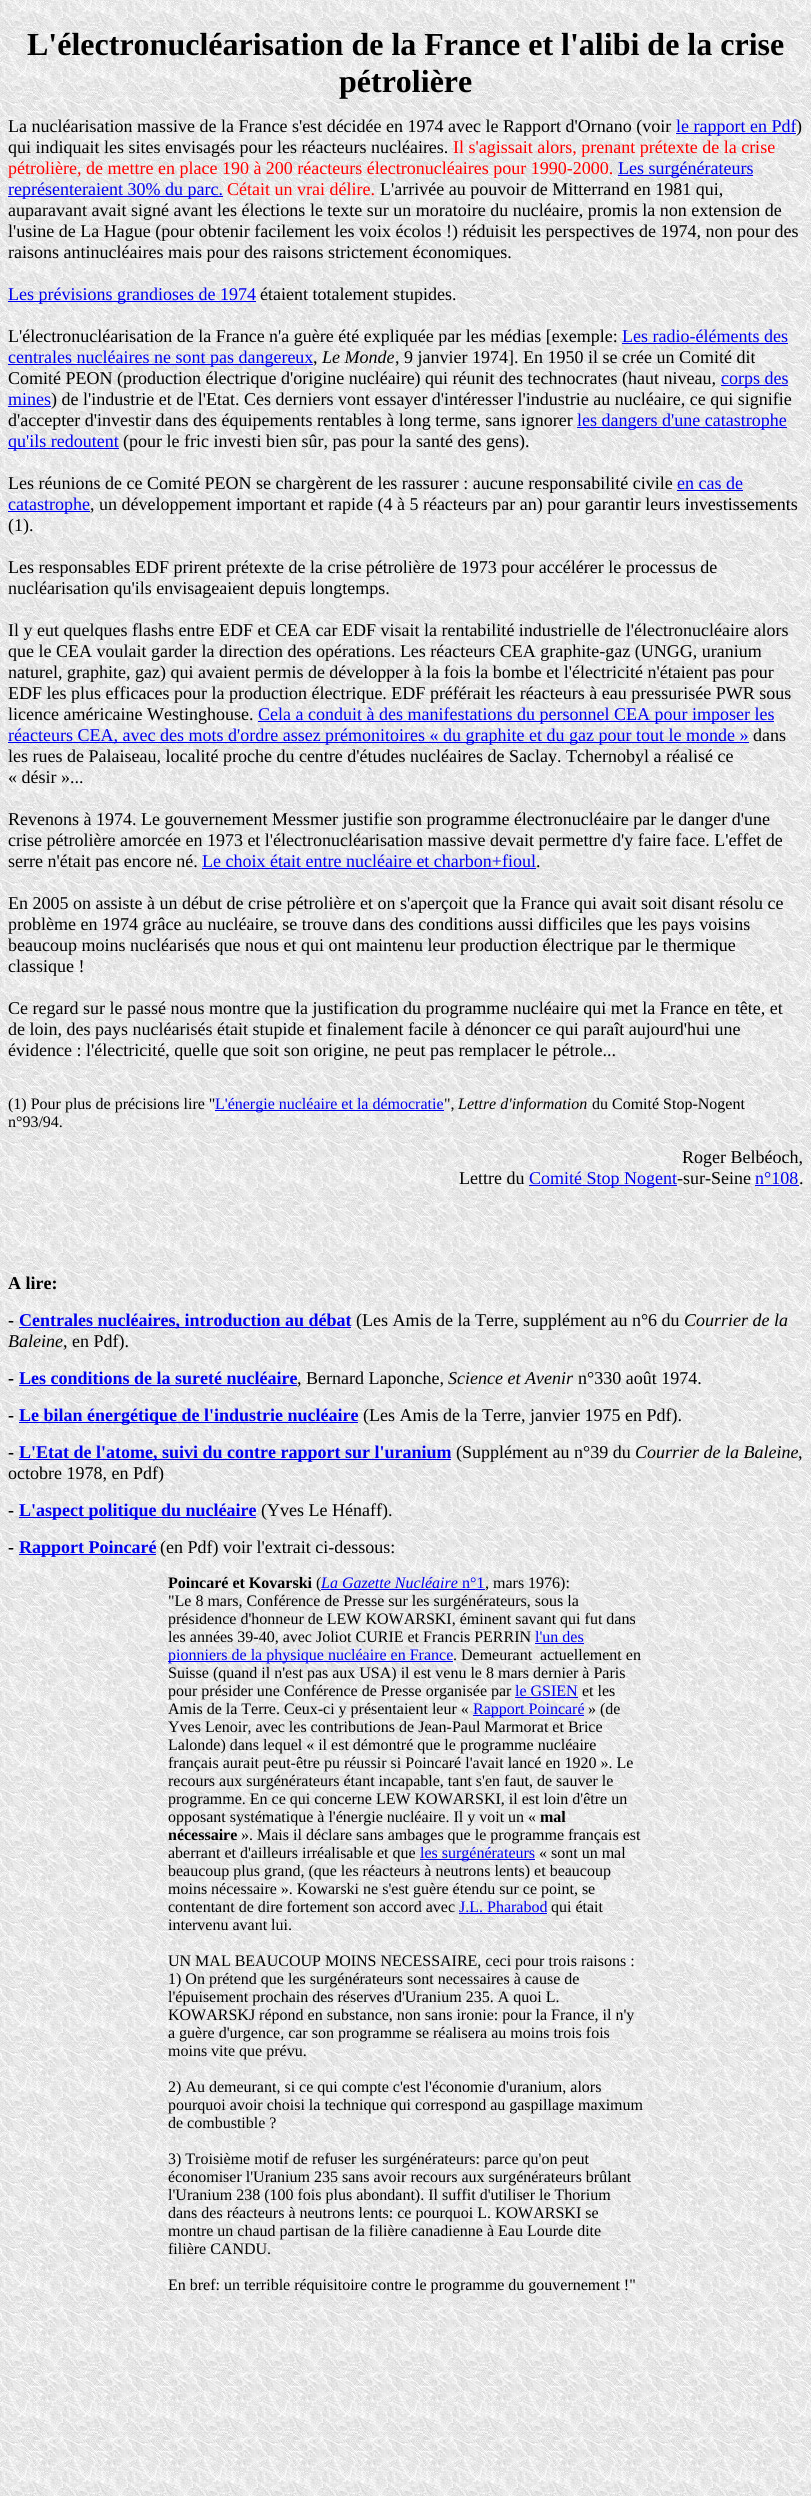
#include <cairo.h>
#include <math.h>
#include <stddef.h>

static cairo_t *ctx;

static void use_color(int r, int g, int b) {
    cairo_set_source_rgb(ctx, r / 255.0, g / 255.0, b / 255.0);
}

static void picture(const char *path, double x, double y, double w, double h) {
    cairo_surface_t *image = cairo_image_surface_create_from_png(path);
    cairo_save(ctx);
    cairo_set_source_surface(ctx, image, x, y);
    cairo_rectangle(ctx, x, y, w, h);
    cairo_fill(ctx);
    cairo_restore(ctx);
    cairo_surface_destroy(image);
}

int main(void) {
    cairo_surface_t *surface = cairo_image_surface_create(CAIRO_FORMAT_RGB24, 811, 2496);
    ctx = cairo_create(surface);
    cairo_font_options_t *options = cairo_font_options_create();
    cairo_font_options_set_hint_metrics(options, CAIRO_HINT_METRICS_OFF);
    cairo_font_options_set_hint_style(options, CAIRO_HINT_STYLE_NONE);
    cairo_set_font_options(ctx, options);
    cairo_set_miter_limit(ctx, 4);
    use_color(255, 255, 255);
    cairo_paint(ctx);
    picture("img1.png", 0, 0, 811, 2496);
    cairo_select_font_face(ctx, "Liberation Serif", CAIRO_FONT_SLANT_NORMAL, CAIRO_FONT_WEIGHT_BOLD);
    cairo_set_font_size(ctx, 32);
    use_color(0, 0, 0);
    cairo_move_to(ctx, 27, 55);
    cairo_show_text(ctx, "L'électronucléarisation de la France et l'alibi de la crise");
    cairo_move_to(ctx, 339, 92);
    cairo_show_text(ctx, "pétrolière");
    cairo_select_font_face(ctx, "Liberation Serif", CAIRO_FONT_SLANT_NORMAL, CAIRO_FONT_WEIGHT_NORMAL);
    cairo_set_font_size(ctx, 18);
    cairo_move_to(ctx, 8, 132);
    cairo_show_text(ctx, "La nucléarisation massive de la France s'est décidée en 1974 avec le Rapport d'Ornano (voir");
    use_color(0, 0, 238);
    cairo_rectangle(ctx, 676, 133, 120, 1);
    cairo_fill(ctx);
    cairo_move_to(ctx, 676, 132);
    cairo_show_text(ctx, "le rapport en Pdf");
    use_color(0, 0, 0);
    cairo_move_to(ctx, 796, 132);
    cairo_show_text(ctx, ")");
    cairo_move_to(ctx, 8, 153);
    cairo_show_text(ctx, "qui indiquait les sites envisagés pour les réacteurs nucléaires.");
    use_color(255, 0, 0);
    cairo_move_to(ctx, 453, 153);
    cairo_show_text(ctx, "Il s'agissait alors, prenant prétexte de la crise");
    cairo_move_to(ctx, 8, 174);
    cairo_show_text(ctx, "pétrolière, de mettre en place 190 à 200 réacteurs électronucléaires pour 1990-2000.");
    use_color(0, 0, 238);
    cairo_rectangle(ctx, 618, 175, 135, 1);
    cairo_fill(ctx);
    cairo_move_to(ctx, 618, 174);
    cairo_show_text(ctx, "Les surgénérateurs");
    cairo_rectangle(ctx, 8, 196, 215, 1);
    cairo_fill(ctx);
    cairo_move_to(ctx, 8, 195);
    cairo_show_text(ctx, "représenteraient 30% du parc.");
    use_color(255, 0, 0);
    cairo_move_to(ctx, 227, 195);
    cairo_show_text(ctx, "Cétait un vrai délire.");
    use_color(0, 0, 0);
    cairo_move_to(ctx, 380, 195);
    cairo_show_text(ctx, "L'arrivée au pouvoir de Mitterrand en 1981 qui,");
    cairo_move_to(ctx, 8, 216);
    cairo_show_text(ctx, "auparavant avait signé avant les élections le texte sur un moratoire du nucléaire, promis la non extension de");
    cairo_move_to(ctx, 8, 237);
    cairo_show_text(ctx, "l'usine de La Hague (pour obtenir facilement les voix écolos !) réduisit les perspectives de 1974, non pour des");
    cairo_move_to(ctx, 8, 258);
    cairo_show_text(ctx, "raisons antinucléaires mais pour des raisons strictement économiques.");
    use_color(0, 0, 238);
    cairo_rectangle(ctx, 8, 301, 248, 1);
    cairo_fill(ctx);
    cairo_move_to(ctx, 8, 300);
    cairo_show_text(ctx, "Les prévisions grandioses de 1974");
    use_color(0, 0, 0);
    cairo_move_to(ctx, 260, 300);
    cairo_show_text(ctx, "étaient totalement stupides.");
    cairo_move_to(ctx, 8, 342);
    cairo_show_text(ctx, "L'électronucléarisation de la France n'a guère été expliquée par les médias [exemple:");
    use_color(0, 0, 238);
    cairo_move_to(ctx, 622, 342);
    cairo_show_text(ctx, "Les radio-éléments des");
    cairo_rectangle(ctx, 622, 343, 166, 1);
    cairo_fill(ctx);
    cairo_rectangle(ctx, 8, 364, 305, 1);
    cairo_fill(ctx);
    cairo_move_to(ctx, 8, 363);
    cairo_show_text(ctx, "centrales nucléaires ne sont pas dangereux");
    use_color(0, 0, 0);
    cairo_move_to(ctx, 313, 363);
    cairo_show_text(ctx, ",");
    cairo_select_font_face(ctx, "Liberation Serif", CAIRO_FONT_SLANT_ITALIC, CAIRO_FONT_WEIGHT_NORMAL);
    cairo_move_to(ctx, 322, 363);
    cairo_show_text(ctx, "Le Monde");
    cairo_select_font_face(ctx, "Liberation Serif", CAIRO_FONT_SLANT_NORMAL, CAIRO_FONT_WEIGHT_NORMAL);
    cairo_move_to(ctx, 395, 363);
    cairo_show_text(ctx, ", 9 janvier 1974]. En 1950 il se crée un Comité dit");
    cairo_move_to(ctx, 8, 384);
    cairo_show_text(ctx, "Comité PEON (production électrique d'origine nucléaire) qui réunit des technocrates (haut niveau,");
    use_color(0, 0, 238);
    cairo_rectangle(ctx, 721, 385, 67, 1);
    cairo_fill(ctx);
    cairo_move_to(ctx, 721, 384);
    cairo_show_text(ctx, "corps des");
    cairo_move_to(ctx, 8, 405);
    cairo_show_text(ctx, "mines");
    use_color(0, 0, 0);
    cairo_move_to(ctx, 51, 405);
    cairo_show_text(ctx, ") de l'industrie et de l'Etat. Ces derniers vont essayer d'intéresser l'industrie au nucléaire, ce qui signifie");
    use_color(0, 0, 238);
    cairo_rectangle(ctx, 8, 406, 43, 1);
    cairo_fill(ctx);
    use_color(0, 0, 0);
    cairo_move_to(ctx, 8, 426);
    cairo_show_text(ctx, "d'accepter d'investir dans des équipements rentables à long terme, sans ignorer");
    use_color(0, 0, 238);
    cairo_rectangle(ctx, 577, 427, 210, 1);
    cairo_fill(ctx);
    cairo_move_to(ctx, 577, 426);
    cairo_show_text(ctx, "les dangers d'une catastrophe");
    cairo_rectangle(ctx, 8, 448, 111, 1);
    cairo_fill(ctx);
    cairo_move_to(ctx, 8, 447);
    cairo_show_text(ctx, "qu'ils redoutent");
    use_color(0, 0, 0);
    cairo_move_to(ctx, 123, 447);
    cairo_show_text(ctx, "(pour le fric investi bien sûr, pas pour la santé des gens).");
    cairo_move_to(ctx, 8, 489);
    cairo_show_text(ctx, "Les réunions de ce Comité PEON se chargèrent de les rassurer : aucune responsabilité civile");
    use_color(0, 0, 238);
    cairo_move_to(ctx, 677, 489);
    cairo_show_text(ctx, "en cas de");
    cairo_rectangle(ctx, 677, 490, 66, 1);
    cairo_fill(ctx);
    cairo_rectangle(ctx, 8, 511, 82, 1);
    cairo_fill(ctx);
    cairo_move_to(ctx, 8, 510);
    cairo_show_text(ctx, "catastrophe");
    use_color(0, 0, 0);
    cairo_move_to(ctx, 90, 510);
    cairo_show_text(ctx, ", un développement important et rapide (4 à 5 réacteurs par an) pour garantir leurs investissements");
    cairo_move_to(ctx, 8, 531);
    cairo_show_text(ctx, "(1).");
    cairo_move_to(ctx, 8, 573);
    cairo_show_text(ctx, "Les responsables EDF prirent prétexte de la crise pétrolière de 1973 pour accélérer le processus de");
    cairo_move_to(ctx, 8, 594);
    cairo_show_text(ctx, "nucléarisation qu'ils envisageaient depuis longtemps.");
    cairo_move_to(ctx, 8, 636);
    cairo_show_text(ctx, "Il y eut quelques flashs entre EDF et CEA car EDF visait la rentabilité industrielle de l'électronucléaire alors");
    cairo_move_to(ctx, 8, 657);
    cairo_show_text(ctx, "que le CEA voulait garder la direction des opérations. Les réacteurs CEA graphite-gaz (UNGG, uranium");
    cairo_move_to(ctx, 8, 678);
    cairo_show_text(ctx, "naturel, graphite, gaz) qui avaient permis de développer à la fois la bombe et l'électricité n'étaient pas pour");
    cairo_move_to(ctx, 8, 699);
    cairo_show_text(ctx, "EDF les plus efficaces pour la production électrique. EDF préférait les réacteurs à eau pressurisée PWR sous");
    cairo_move_to(ctx, 8, 720);
    cairo_show_text(ctx, "licence américaine Westinghouse.");
    use_color(0, 0, 238);
    cairo_rectangle(ctx, 258, 721, 516, 1);
    cairo_fill(ctx);
    cairo_move_to(ctx, 258, 720);
    cairo_show_text(ctx, "Cela a conduit à des manifestations du personnel CEA pour imposer les");
    cairo_rectangle(ctx, 8, 742, 741, 1);
    cairo_fill(ctx);
    cairo_move_to(ctx, 8, 741);
    cairo_show_text(ctx, "réacteurs CEA, avec des mots d'ordre assez prémonitoires « du graphite et du gaz pour tout le monde »");
    use_color(0, 0, 0);
    cairo_move_to(ctx, 753, 741);
    cairo_show_text(ctx, "dans");
    cairo_move_to(ctx, 8, 762);
    cairo_show_text(ctx, "les rues de Palaiseau, localité proche du centre d'études nucléaires de Saclay. Tchernobyl a réalisé ce");
    cairo_move_to(ctx, 8, 783);
    cairo_show_text(ctx, "« désir »...");
    cairo_move_to(ctx, 8, 825);
    cairo_show_text(ctx, "Revenons à 1974. Le gouvernement Messmer justifie son programme électronucléaire par le danger d'une");
    cairo_move_to(ctx, 8, 846);
    cairo_show_text(ctx, "crise pétrolière amorcée en 1973 et l'électronucléarisation massive devait permettre d'y faire face. L'effet de");
    cairo_move_to(ctx, 8, 867);
    cairo_show_text(ctx, "serre n'était pas encore né.");
    use_color(0, 0, 238);
    cairo_move_to(ctx, 202, 867);
    cairo_show_text(ctx, "Le choix était entre nucléaire et charbon+fioul");
    use_color(0, 0, 0);
    cairo_move_to(ctx, 536, 867);
    cairo_show_text(ctx, ".");
    use_color(0, 0, 238);
    cairo_rectangle(ctx, 202, 868, 334, 1);
    cairo_fill(ctx);
    use_color(0, 0, 0);
    cairo_move_to(ctx, 8, 909);
    cairo_show_text(ctx, "En 2005 on assiste à un début de crise pétrolière et on s'aperçoit que la France qui avait soit disant résolu ce");
    cairo_move_to(ctx, 8, 930);
    cairo_show_text(ctx, "problème en 1974 grâce au nucléaire, se trouve dans des conditions aussi difficiles que les pays voisins");
    cairo_move_to(ctx, 8, 951);
    cairo_show_text(ctx, "beaucoup moins nucléarisés que nous et qui ont maintenu leur production électrique par le thermique");
    cairo_move_to(ctx, 8, 972);
    cairo_show_text(ctx, "classique !");
    cairo_move_to(ctx, 8, 1014);
    cairo_show_text(ctx, "Ce regard sur le passé nous montre que la justification du programme nucléaire qui met la France en tête, et");
    cairo_move_to(ctx, 8, 1035);
    cairo_show_text(ctx, "de loin, des pays nucléarisés était stupide et finalement facile à dénoncer ce qui paraît aujourd'hui une");
    cairo_move_to(ctx, 8, 1056);
    cairo_show_text(ctx, "évidence : l'électricité, quelle que soit son origine, ne peut pas remplacer le pétrole...");
    cairo_set_font_size(ctx, 16);
    cairo_move_to(ctx, 8, 1109);
    cairo_show_text(ctx, "(1) Pour plus de précisions lire \"");
    use_color(0, 0, 238);
    cairo_rectangle(ctx, 215, 1110, 229, 1);
    cairo_fill(ctx);
    cairo_move_to(ctx, 215, 1109);
    cairo_show_text(ctx, "L'énergie nucléaire et la démocratie");
    use_color(0, 0, 0);
    cairo_move_to(ctx, 444, 1109);
    cairo_show_text(ctx, "\",");
    cairo_select_font_face(ctx, "Liberation Serif", CAIRO_FONT_SLANT_ITALIC, CAIRO_FONT_WEIGHT_NORMAL);
    cairo_move_to(ctx, 458, 1109);
    cairo_show_text(ctx, "Lettre d'information");
    cairo_select_font_face(ctx, "Liberation Serif", CAIRO_FONT_SLANT_NORMAL, CAIRO_FONT_WEIGHT_NORMAL);
    cairo_move_to(ctx, 592, 1109);
    cairo_show_text(ctx, "du Comité Stop-Nogent");
    cairo_move_to(ctx, 8, 1127);
    cairo_show_text(ctx, "n°93/94.");
    cairo_set_font_size(ctx, 18);
    cairo_move_to(ctx, 682, 1163);
    cairo_show_text(ctx, "Roger Belbéoch,");
    cairo_move_to(ctx, 459, 1184);
    cairo_show_text(ctx, "Lettre du");
    use_color(0, 0, 238);
    cairo_rectangle(ctx, 529, 1185, 148, 1);
    cairo_fill(ctx);
    cairo_move_to(ctx, 529, 1184);
    cairo_show_text(ctx, "Comité Stop Nogent");
    use_color(0, 0, 0);
    cairo_move_to(ctx, 677, 1184);
    cairo_show_text(ctx, "-sur-Seine");
    use_color(0, 0, 238);
    cairo_move_to(ctx, 755, 1184);
    cairo_show_text(ctx, "n°108");
    use_color(0, 0, 0);
    cairo_move_to(ctx, 799, 1184);
    cairo_show_text(ctx, ".");
    use_color(0, 0, 238);
    cairo_rectangle(ctx, 755, 1185, 44, 1);
    cairo_fill(ctx);
    cairo_select_font_face(ctx, "Liberation Serif", CAIRO_FONT_SLANT_NORMAL, CAIRO_FONT_WEIGHT_BOLD);
    use_color(0, 0, 0);
    cairo_move_to(ctx, 8, 1289);
    cairo_show_text(ctx, "A lire:");
    cairo_move_to(ctx, 8, 1326);
    cairo_show_text(ctx, "-");
    use_color(0, 0, 238);
    cairo_rectangle(ctx, 19, 1327, 332, 1);
    cairo_fill(ctx);
    cairo_move_to(ctx, 19, 1326);
    cairo_show_text(ctx, "Centrales nucléaires, introduction au débat");
    cairo_select_font_face(ctx, "Liberation Serif", CAIRO_FONT_SLANT_NORMAL, CAIRO_FONT_WEIGHT_NORMAL);
    use_color(0, 0, 0);
    cairo_move_to(ctx, 356, 1326);
    cairo_show_text(ctx, "(Les Amis de la Terre, supplément au n°6 du");
    cairo_select_font_face(ctx, "Liberation Serif", CAIRO_FONT_SLANT_ITALIC, CAIRO_FONT_WEIGHT_NORMAL);
    cairo_move_to(ctx, 684, 1326);
    cairo_show_text(ctx, "Courrier de la");
    cairo_move_to(ctx, 8, 1347);
    cairo_show_text(ctx, "Baleine");
    cairo_select_font_face(ctx, "Liberation Serif", CAIRO_FONT_SLANT_NORMAL, CAIRO_FONT_WEIGHT_NORMAL);
    cairo_move_to(ctx, 63, 1347);
    cairo_show_text(ctx, ", en Pdf).");
    cairo_select_font_face(ctx, "Liberation Serif", CAIRO_FONT_SLANT_NORMAL, CAIRO_FONT_WEIGHT_BOLD);
    cairo_move_to(ctx, 8, 1384);
    cairo_show_text(ctx, "-");
    use_color(0, 0, 238);
    cairo_move_to(ctx, 19, 1384);
    cairo_show_text(ctx, "Les conditions de la sureté nucléaire");
    cairo_rectangle(ctx, 19, 1385, 278, 1);
    cairo_fill(ctx);
    cairo_select_font_face(ctx, "Liberation Serif", CAIRO_FONT_SLANT_NORMAL, CAIRO_FONT_WEIGHT_NORMAL);
    use_color(0, 0, 0);
    cairo_move_to(ctx, 297, 1384);
    cairo_show_text(ctx, ", Bernard Laponche,");
    cairo_select_font_face(ctx, "Liberation Serif", CAIRO_FONT_SLANT_ITALIC, CAIRO_FONT_WEIGHT_NORMAL);
    cairo_move_to(ctx, 448, 1384);
    cairo_show_text(ctx, "Science et Avenir");
    cairo_select_font_face(ctx, "Liberation Serif", CAIRO_FONT_SLANT_NORMAL, CAIRO_FONT_WEIGHT_NORMAL);
    cairo_move_to(ctx, 578, 1384);
    cairo_show_text(ctx, "n°330 août 1974.");
    cairo_select_font_face(ctx, "Liberation Serif", CAIRO_FONT_SLANT_NORMAL, CAIRO_FONT_WEIGHT_BOLD);
    cairo_move_to(ctx, 8, 1421);
    cairo_show_text(ctx, "-");
    use_color(0, 0, 238);
    cairo_rectangle(ctx, 19, 1422, 339, 1);
    cairo_fill(ctx);
    cairo_move_to(ctx, 19, 1421);
    cairo_show_text(ctx, "Le bilan énergétique de l'industrie nucléaire");
    cairo_select_font_face(ctx, "Liberation Serif", CAIRO_FONT_SLANT_NORMAL, CAIRO_FONT_WEIGHT_NORMAL);
    use_color(0, 0, 0);
    cairo_move_to(ctx, 363, 1421);
    cairo_show_text(ctx, "(Les Amis de la Terre, janvier 1975 en Pdf).");
    cairo_select_font_face(ctx, "Liberation Serif", CAIRO_FONT_SLANT_NORMAL, CAIRO_FONT_WEIGHT_BOLD);
    cairo_move_to(ctx, 8, 1458);
    cairo_show_text(ctx, "-");
    use_color(0, 0, 238);
    cairo_rectangle(ctx, 19, 1459, 432, 1);
    cairo_fill(ctx);
    cairo_move_to(ctx, 19, 1458);
    cairo_show_text(ctx, "L'Etat de l'atome, suivi du contre rapport sur l'uranium");
    cairo_select_font_face(ctx, "Liberation Serif", CAIRO_FONT_SLANT_NORMAL, CAIRO_FONT_WEIGHT_NORMAL);
    use_color(0, 0, 0);
    cairo_move_to(ctx, 456, 1458);
    cairo_show_text(ctx, "(Supplément au n°39 du");
    cairo_select_font_face(ctx, "Liberation Serif", CAIRO_FONT_SLANT_ITALIC, CAIRO_FONT_WEIGHT_NORMAL);
    cairo_move_to(ctx, 635, 1458);
    cairo_show_text(ctx, "Courrier de la Baleine");
    cairo_select_font_face(ctx, "Liberation Serif", CAIRO_FONT_SLANT_NORMAL, CAIRO_FONT_WEIGHT_NORMAL);
    cairo_move_to(ctx, 798, 1458);
    cairo_show_text(ctx, ",");
    cairo_move_to(ctx, 8, 1479);
    cairo_show_text(ctx, "octobre 1978, en Pdf)");
    cairo_select_font_face(ctx, "Liberation Serif", CAIRO_FONT_SLANT_NORMAL, CAIRO_FONT_WEIGHT_BOLD);
    cairo_move_to(ctx, 8, 1516);
    cairo_show_text(ctx, "-");
    use_color(0, 0, 238);
    cairo_rectangle(ctx, 19, 1517, 237, 1);
    cairo_fill(ctx);
    cairo_move_to(ctx, 19, 1516);
    cairo_show_text(ctx, "L'aspect politique du nucléaire");
    cairo_select_font_face(ctx, "Liberation Serif", CAIRO_FONT_SLANT_NORMAL, CAIRO_FONT_WEIGHT_NORMAL);
    use_color(0, 0, 0);
    cairo_move_to(ctx, 261, 1516);
    cairo_show_text(ctx, "(Yves Le Hénaff).");
    cairo_select_font_face(ctx, "Liberation Serif", CAIRO_FONT_SLANT_NORMAL, CAIRO_FONT_WEIGHT_BOLD);
    cairo_move_to(ctx, 8, 1553);
    cairo_show_text(ctx, "-");
    use_color(0, 0, 238);
    cairo_rectangle(ctx, 19, 1554, 137, 1);
    cairo_fill(ctx);
    cairo_move_to(ctx, 19, 1553);
    cairo_show_text(ctx, "Rapport Poincaré");
    cairo_select_font_face(ctx, "Liberation Serif", CAIRO_FONT_SLANT_NORMAL, CAIRO_FONT_WEIGHT_NORMAL);
    use_color(0, 0, 0);
    cairo_move_to(ctx, 160, 1553);
    cairo_show_text(ctx, "(en Pdf) voir l'extrait ci-dessous:");
    cairo_select_font_face(ctx, "Liberation Serif", CAIRO_FONT_SLANT_NORMAL, CAIRO_FONT_WEIGHT_BOLD);
    cairo_set_font_size(ctx, 16);
    cairo_move_to(ctx, 168, 1588);
    cairo_show_text(ctx, "Poincaré et Kovarski");
    cairo_select_font_face(ctx, "Liberation Serif", CAIRO_FONT_SLANT_NORMAL, CAIRO_FONT_WEIGHT_NORMAL);
    cairo_move_to(ctx, 316, 1588);
    cairo_show_text(ctx, "(");
    cairo_select_font_face(ctx, "Liberation Serif", CAIRO_FONT_SLANT_ITALIC, CAIRO_FONT_WEIGHT_NORMAL);
    use_color(0, 0, 238);
    cairo_move_to(ctx, 321, 1588);
    cairo_show_text(ctx, "La Gazette Nucléaire");
    cairo_rectangle(ctx, 321, 1589, 164, 1);
    cairo_fill(ctx);
    cairo_select_font_face(ctx, "Liberation Serif", CAIRO_FONT_SLANT_NORMAL, CAIRO_FONT_WEIGHT_NORMAL);
    cairo_move_to(ctx, 462, 1588);
    cairo_show_text(ctx, "n°1");
    use_color(0, 0, 0);
    cairo_move_to(ctx, 485, 1588);
    cairo_show_text(ctx, ", mars 1976):");
    cairo_move_to(ctx, 168, 1606);
    cairo_show_text(ctx, "\"Le 8 mars, Conférence de Presse sur les surgénérateurs, sous la");
    cairo_move_to(ctx, 168, 1624);
    cairo_show_text(ctx, "présidence d'honneur de LEW KOWARSKI, éminent savant qui fut dans");
    cairo_move_to(ctx, 168, 1642);
    cairo_show_text(ctx, "les années 39-40, avec Joliot CURIE et Francis PERRIN");
    use_color(0, 0, 238);
    cairo_move_to(ctx, 535, 1642);
    cairo_show_text(ctx, "l'un des");
    cairo_rectangle(ctx, 535, 1643, 49, 1);
    cairo_fill(ctx);
    cairo_rectangle(ctx, 168, 1661, 285, 1);
    cairo_fill(ctx);
    cairo_move_to(ctx, 168, 1660);
    cairo_show_text(ctx, "pionniers de la physique nucléaire en France");
    use_color(0, 0, 0);
    cairo_move_to(ctx, 453, 1660);
    cairo_show_text(ctx, ". Demeurant  actuellement en");
    cairo_move_to(ctx, 168, 1678);
    cairo_show_text(ctx, "Suisse (quand il n'est pas aux USA) il est venu le 8 mars dernier à Paris");
    cairo_move_to(ctx, 168, 1696);
    cairo_show_text(ctx, "pour présider une Conférence de Presse organisée par");
    use_color(0, 0, 238);
    cairo_move_to(ctx, 515, 1696);
    cairo_show_text(ctx, "le GSIEN");
    cairo_rectangle(ctx, 515, 1697, 63, 1);
    cairo_fill(ctx);
    use_color(0, 0, 0);
    cairo_move_to(ctx, 582, 1696);
    cairo_show_text(ctx, "et les");
    cairo_move_to(ctx, 168, 1714);
    cairo_show_text(ctx, "Amis de la Terre. Ceux-ci y présentaient leur «");
    use_color(0, 0, 238);
    cairo_rectangle(ctx, 473, 1715, 111, 1);
    cairo_fill(ctx);
    cairo_move_to(ctx, 473, 1714);
    cairo_show_text(ctx, "Rapport Poincaré");
    use_color(0, 0, 0);
    cairo_move_to(ctx, 588, 1714);
    cairo_show_text(ctx, "» (de");
    cairo_move_to(ctx, 168, 1732);
    cairo_show_text(ctx, "Yves Lenoir, avec les contributions de Jean-Paul Marmorat et Brice");
    cairo_move_to(ctx, 168, 1750);
    cairo_show_text(ctx, "Lalonde) dans lequel « il est démontré que le programme nucléaire");
    cairo_move_to(ctx, 168, 1768);
    cairo_show_text(ctx, "français aurait peut-être pu réussir si Poincaré l'avait lancé en 1920 ». Le");
    cairo_move_to(ctx, 168, 1786);
    cairo_show_text(ctx, "recours aux surgénérateurs étant incapable, tant s'en faut, de sauver le");
    cairo_move_to(ctx, 168, 1804);
    cairo_show_text(ctx, "programme. En ce qui concerne LEW KOWARSKI, il est loin d'être un");
    cairo_move_to(ctx, 168, 1822);
    cairo_show_text(ctx, "opposant systématique à l'énergie nucléaire. Il y voit un «");
    cairo_select_font_face(ctx, "Liberation Serif", CAIRO_FONT_SLANT_NORMAL, CAIRO_FONT_WEIGHT_BOLD);
    cairo_move_to(ctx, 540, 1822);
    cairo_show_text(ctx, "mal");
    cairo_move_to(ctx, 168, 1840);
    cairo_show_text(ctx, "nécessaire");
    cairo_select_font_face(ctx, "Liberation Serif", CAIRO_FONT_SLANT_NORMAL, CAIRO_FONT_WEIGHT_NORMAL);
    cairo_move_to(ctx, 241, 1840);
    cairo_show_text(ctx, "». Mais il déclare sans ambages que le programme français est");
    cairo_move_to(ctx, 168, 1858);
    cairo_show_text(ctx, "aberrant et d'ailleurs irréalisable et que");
    use_color(0, 0, 238);
    cairo_rectangle(ctx, 420, 1859, 115, 1);
    cairo_fill(ctx);
    cairo_move_to(ctx, 420, 1858);
    cairo_show_text(ctx, "les surgénérateurs");
    use_color(0, 0, 0);
    cairo_move_to(ctx, 539, 1858);
    cairo_show_text(ctx, "« sont un mal");
    cairo_move_to(ctx, 168, 1876);
    cairo_show_text(ctx, "beaucoup plus grand, (que les réacteurs à neutrons lents) et beaucoup");
    cairo_move_to(ctx, 168, 1894);
    cairo_show_text(ctx, "moins nécessaire ». Kowarski ne s'est guère étendu sur ce point, se");
    cairo_move_to(ctx, 168, 1912);
    cairo_show_text(ctx, "contentant de dire fortement son accord avec");
    use_color(0, 0, 238);
    cairo_move_to(ctx, 459, 1912);
    cairo_show_text(ctx, "J.L. Pharabod");
    cairo_rectangle(ctx, 459, 1913, 88, 1);
    cairo_fill(ctx);
    use_color(0, 0, 0);
    cairo_move_to(ctx, 551, 1912);
    cairo_show_text(ctx, "qui était");
    cairo_move_to(ctx, 168, 1930);
    cairo_show_text(ctx, "intervenu avant lui.");
    cairo_move_to(ctx, 168, 1966);
    cairo_show_text(ctx, "UN MAL BEAUCOUP MOINS NECESSAIRE, ceci pour trois raisons :");
    cairo_move_to(ctx, 168, 1984);
    cairo_show_text(ctx, "1) On prétend que les surgénérateurs sont necessaires à cause de");
    cairo_move_to(ctx, 168, 2002);
    cairo_show_text(ctx, "l'épuisement prochain des réserves d'Uranium 235. A quoi L.");
    cairo_move_to(ctx, 168, 2020);
    cairo_show_text(ctx, "KOWARSKJ répond en substance, non sans ironie: pour la France, il n'y");
    cairo_move_to(ctx, 168, 2038);
    cairo_show_text(ctx, "a guère d'urgence, car son programme se réalisera au moins trois fois");
    cairo_move_to(ctx, 168, 2056);
    cairo_show_text(ctx, "moins vite que prévu.");
    cairo_move_to(ctx, 168, 2092);
    cairo_show_text(ctx, "2) Au demeurant, si ce qui compte c'est l'économie d'uranium, alors");
    cairo_move_to(ctx, 168, 2110);
    cairo_show_text(ctx, "pourquoi avoir choisi la technique qui correspond au gaspillage maximum");
    cairo_move_to(ctx, 168, 2128);
    cairo_show_text(ctx, "de combustible ?");
    cairo_move_to(ctx, 168, 2164);
    cairo_show_text(ctx, "3) Troisième motif de refuser les surgénérateurs: parce qu'on peut");
    cairo_move_to(ctx, 168, 2182);
    cairo_show_text(ctx, "économiser l'Uranium 235 sans avoir recours aux surgénérateurs brûlant");
    cairo_move_to(ctx, 168, 2200);
    cairo_show_text(ctx, "l'Uranium 238 (100 fois plus abondant). Il suffit d'utiliser le Thorium");
    cairo_move_to(ctx, 168, 2218);
    cairo_show_text(ctx, "dans des réacteurs à neutrons lents: ce pourquoi L. KOWARSKI se");
    cairo_move_to(ctx, 168, 2236);
    cairo_show_text(ctx, "montre un chaud partisan de la filière canadienne à Eau Lourde dite");
    cairo_move_to(ctx, 168, 2254);
    cairo_show_text(ctx, "filière CANDU.");
    cairo_move_to(ctx, 168, 2290);
    cairo_show_text(ctx, "En bref: un terrible réquisitoire contre le programme du gouvernement !\"");
    cairo_surface_write_to_png(surface, "result.png");
    cairo_font_options_destroy(options);
    cairo_destroy(ctx);
    cairo_surface_destroy(surface);
    return 0;
}
